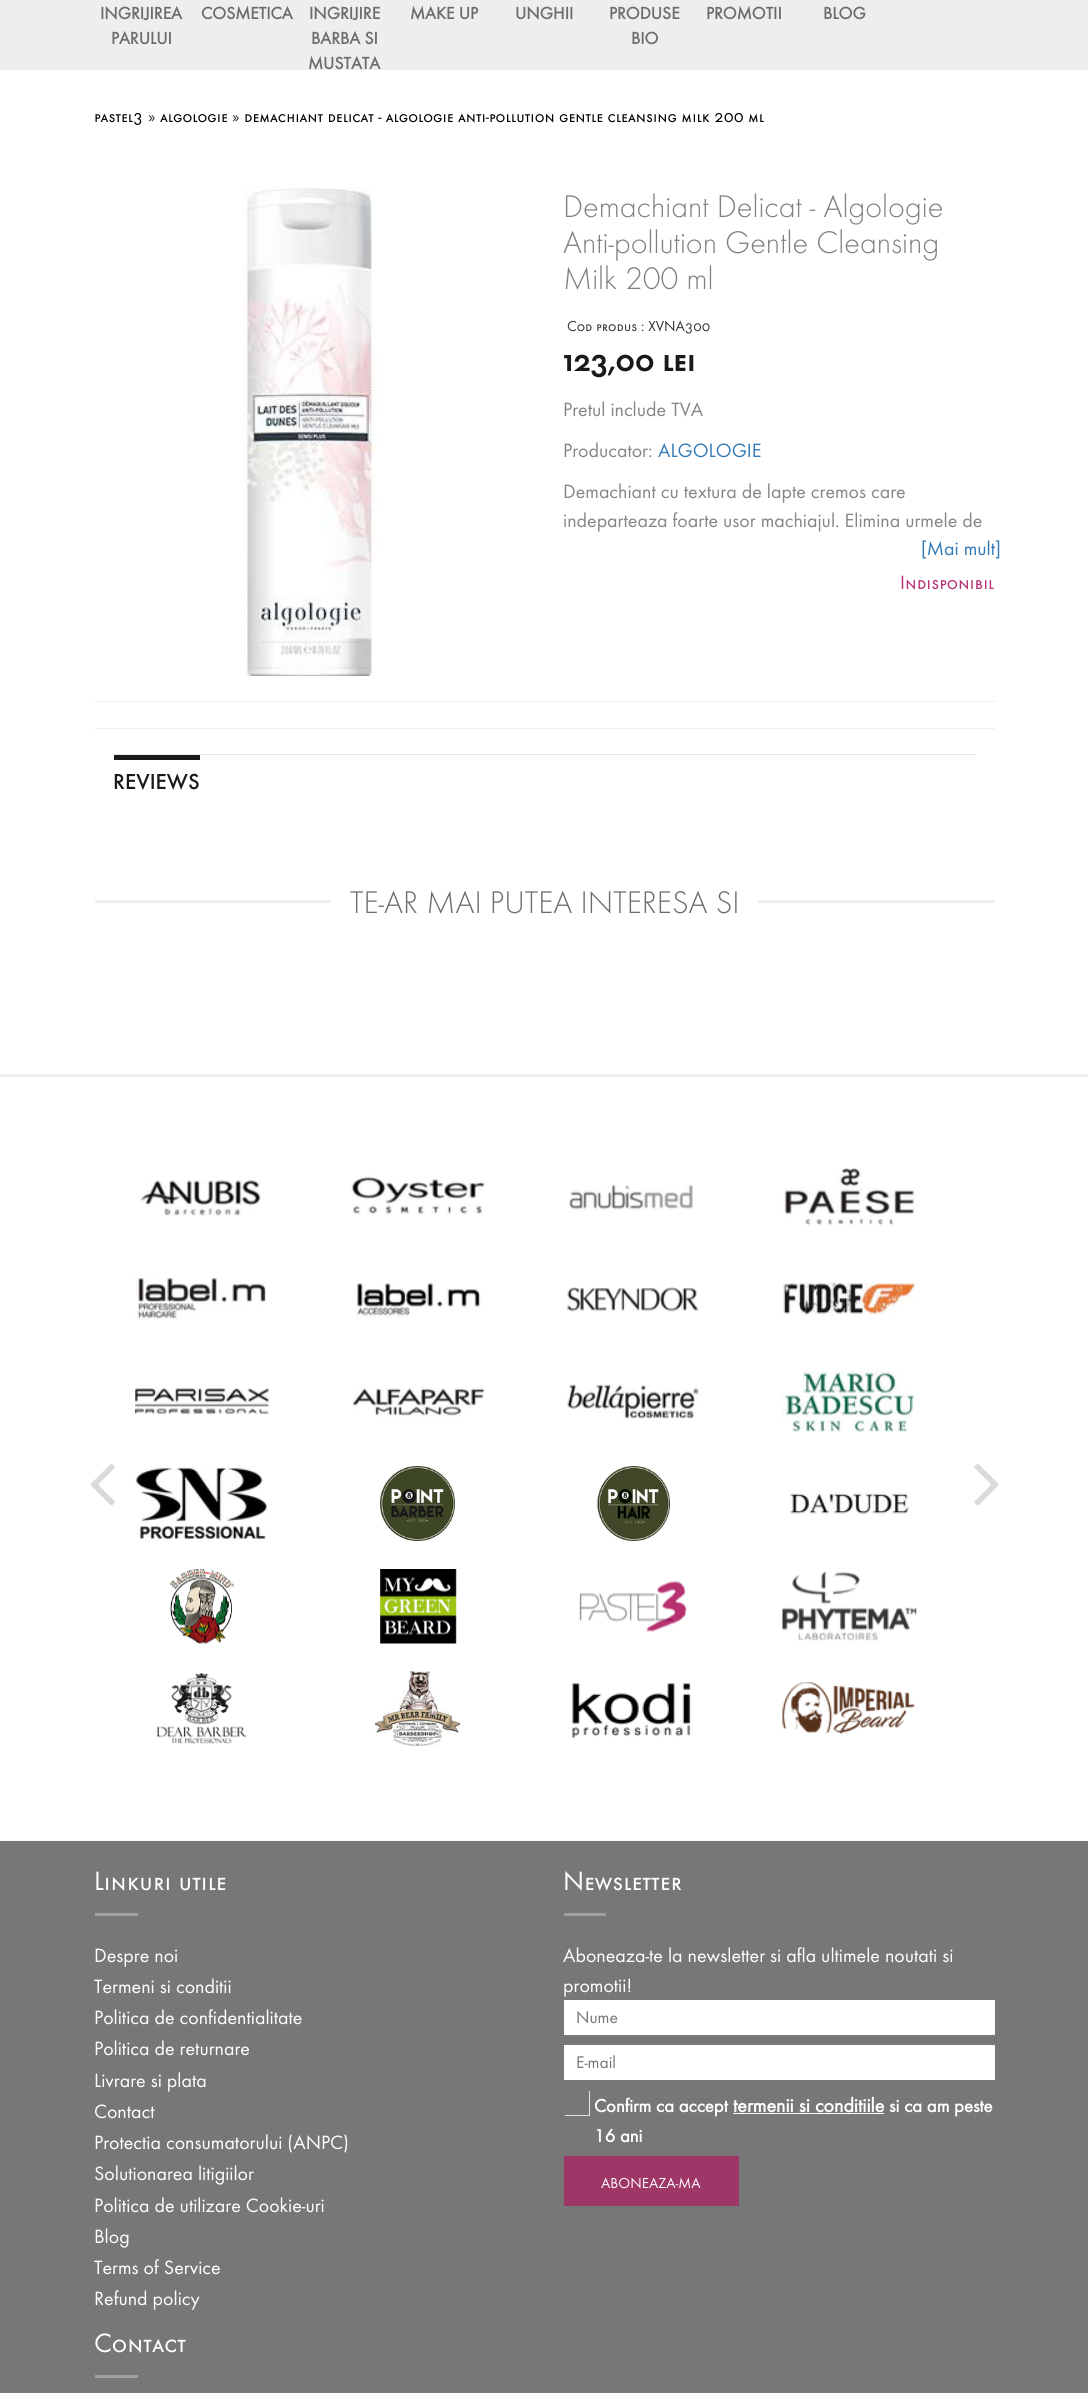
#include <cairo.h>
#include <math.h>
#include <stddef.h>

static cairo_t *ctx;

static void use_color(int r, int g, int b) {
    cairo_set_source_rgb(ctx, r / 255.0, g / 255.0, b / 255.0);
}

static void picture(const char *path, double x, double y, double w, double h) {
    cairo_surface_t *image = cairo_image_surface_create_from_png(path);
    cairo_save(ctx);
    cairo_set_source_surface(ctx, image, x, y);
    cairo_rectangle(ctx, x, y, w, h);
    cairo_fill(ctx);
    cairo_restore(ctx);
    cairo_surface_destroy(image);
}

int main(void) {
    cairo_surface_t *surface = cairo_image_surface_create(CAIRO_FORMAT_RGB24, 1088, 2393);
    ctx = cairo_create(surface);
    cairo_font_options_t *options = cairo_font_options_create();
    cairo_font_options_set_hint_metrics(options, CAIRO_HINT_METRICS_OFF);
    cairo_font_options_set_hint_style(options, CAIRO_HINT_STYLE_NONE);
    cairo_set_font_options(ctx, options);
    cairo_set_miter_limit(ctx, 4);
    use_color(255, 255, 255);
    cairo_paint(ctx);
    use_color(238, 238, 238);
    cairo_rectangle(ctx, 0, 0, 1088, 70);
    cairo_fill(ctx);
    cairo_select_font_face(ctx, "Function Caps", CAIRO_FONT_SLANT_NORMAL, CAIRO_FONT_WEIGHT_BOLD);
    cairo_set_font_size(ctx, 17.5);
    use_color(108, 108, 108);
    cairo_move_to(ctx, 100, 19);
    cairo_show_text(ctx, "INGRIJIREA");
    cairo_move_to(ctx, 111, 44);
    cairo_show_text(ctx, "PARULUI");
    cairo_move_to(ctx, 201, 19);
    cairo_show_text(ctx, "COSMETICA");
    cairo_move_to(ctx, 309, 19);
    cairo_show_text(ctx, "INGRIJIRE");
    cairo_move_to(ctx, 311, 44);
    cairo_show_text(ctx, "BARBA SI");
    cairo_move_to(ctx, 308, 69);
    cairo_show_text(ctx, "MUSTATA");
    cairo_move_to(ctx, 410, 19);
    cairo_show_text(ctx, "MAKE UP");
    cairo_move_to(ctx, 515, 19);
    cairo_show_text(ctx, "UNGHII");
    cairo_move_to(ctx, 609, 19);
    cairo_show_text(ctx, "PRODUSE");
    cairo_move_to(ctx, 631, 44);
    cairo_show_text(ctx, "BIO");
    cairo_move_to(ctx, 706, 19);
    cairo_show_text(ctx, "PROMOTII");
    cairo_move_to(ctx, 823, 19);
    cairo_show_text(ctx, "BLOG");
    cairo_select_font_face(ctx, "Function Caps", CAIRO_FONT_SLANT_NORMAL, CAIRO_FONT_WEIGHT_NORMAL);
    use_color(0, 0, 0);
    cairo_move_to(ctx, 94, 122);
    cairo_show_text(ctx, "pastel3");
    use_color(51, 51, 51);
    cairo_move_to(ctx, 148, 122);
    cairo_show_text(ctx, "»");
    use_color(0, 0, 0);
    cairo_move_to(ctx, 160, 122);
    cairo_show_text(ctx, "algologie");
    use_color(51, 51, 51);
    cairo_move_to(ctx, 232, 122);
    cairo_show_text(ctx, "»");
    use_color(0, 0, 0);
    cairo_move_to(ctx, 244, 122);
    cairo_show_text(ctx, "demachiant delicat - algologie anti-pollution gentle cleansing milk 200 ml");
    picture("img1.png", 244, 187, 134, 489);
    cairo_select_font_face(ctx, "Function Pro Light", CAIRO_FONT_SLANT_NORMAL, CAIRO_FONT_WEIGHT_NORMAL);
    cairo_set_font_size(ctx, 32.5);
    use_color(128, 128, 128);
    cairo_move_to(ctx, 563, 217);
    cairo_show_text(ctx, "Demachiant Delicat - Algologie");
    cairo_move_to(ctx, 563, 253);
    cairo_show_text(ctx, "Anti-pollution Gentle Cleansing");
    cairo_move_to(ctx, 563, 289);
    cairo_show_text(ctx, "Milk 200 ml");
    cairo_select_font_face(ctx, "Function Caps", CAIRO_FONT_SLANT_NORMAL, CAIRO_FONT_WEIGHT_NORMAL);
    cairo_set_font_size(ctx, 15);
    use_color(51, 51, 51);
    cairo_move_to(ctx, 567, 331);
    cairo_show_text(ctx, "Cod produs : XVNA300");
    cairo_select_font_face(ctx, "Function Caps SemiBold", CAIRO_FONT_SLANT_NORMAL, CAIRO_FONT_WEIGHT_NORMAL);
    cairo_set_font_size(ctx, 32.5);
    use_color(26, 26, 26);
    cairo_move_to(ctx, 563, 371);
    cairo_show_text(ctx, "123,00 lei");
    cairo_select_font_face(ctx, "Function Pro", CAIRO_FONT_SLANT_NORMAL, CAIRO_FONT_WEIGHT_NORMAL);
    cairo_set_font_size(ctx, 20);
    use_color(134, 134, 134);
    cairo_move_to(ctx, 563, 416);
    cairo_show_text(ctx, "Pretul include TVA");
    cairo_move_to(ctx, 563, 457);
    cairo_show_text(ctx, "Producator:");
    use_color(51, 122, 183);
    cairo_move_to(ctx, 658, 457);
    cairo_show_text(ctx, "ALGOLOGIE");
    use_color(134, 134, 134);
    cairo_move_to(ctx, 563, 498);
    cairo_show_text(ctx, "Demachiant cu textura de lapte cremos care");
    cairo_move_to(ctx, 563, 527);
    cairo_show_text(ctx, "indeparteaza foarte usor machiajul. Elimina urmele de");
    use_color(51, 122, 183);
    cairo_move_to(ctx, 921, 555);
    cairo_show_text(ctx, "[Mai mult]");
    cairo_select_font_face(ctx, "Function Caps", CAIRO_FONT_SLANT_NORMAL, CAIRO_FONT_WEIGHT_NORMAL);
    use_color(184, 49, 114);
    cairo_move_to(ctx, 900, 589);
    cairo_show_text(ctx, "Indisponibil");
    use_color(238, 238, 238);
    cairo_rectangle(ctx, 95, 701, 900, 1);
    cairo_fill(ctx);
    cairo_rectangle(ctx, 95, 728, 900, 1);
    cairo_fill(ctx);
    use_color(232, 232, 232);
    cairo_rectangle(ctx, 114, 754, 862, 1);
    cairo_fill(ctx);
    use_color(26, 26, 26);
    cairo_rectangle(ctx, 114, 755, 86, 5);
    cairo_fill(ctx);
    cairo_select_font_face(ctx, "Function Pro Medium", CAIRO_FONT_SLANT_NORMAL, CAIRO_FONT_WEIGHT_NORMAL);
    cairo_set_font_size(ctx, 22.5);
    cairo_move_to(ctx, 113, 789);
    cairo_show_text(ctx, "REVIEWS");
    use_color(238, 238, 238);
    cairo_rectangle(ctx, 95, 900, 900, 3);
    cairo_fill(ctx);
    use_color(255, 255, 255);
    cairo_rectangle(ctx, 331, 900, 427, 3);
    cairo_fill(ctx);
    cairo_select_font_face(ctx, "Function Caps Light", CAIRO_FONT_SLANT_NORMAL, CAIRO_FONT_WEIGHT_NORMAL);
    cairo_set_font_size(ctx, 32.5);
    use_color(108, 108, 108);
    cairo_move_to(ctx, 350, 913);
    cairo_show_text(ctx, "TE-AR MAI PUTEA INTERESA SI");
    use_color(238, 238, 238);
    cairo_rectangle(ctx, 0, 1074, 1088, 3);
    cairo_fill(ctx);
    picture("img2.png", 140, 1180, 121, 36);
    picture("img3.png", 351, 1175, 134, 40);
    picture("img4.png", 569, 1184, 124, 27);
    picture("img5.png", 783, 1168, 133, 58);
    picture("img6.png", 135, 1277, 131, 43);
    picture("img7.png", 355, 1283, 126, 35);
    picture("img8.png", 567, 1287, 132, 25);
    picture("img9.png", 783, 1282, 133, 33);
    picture("img10.png", 135, 1388, 134, 26);
    picture("img11.png", 352, 1387, 132, 30);
    picture("img12.png", 567, 1384, 132, 35);
    picture("img13.png", 782, 1371, 134, 61);
    picture("img14.png", 135, 1466, 133, 75);
    picture("img15.png", 380, 1466, 75, 75);
    picture("img16.png", 597, 1466, 73, 75);
    picture("img17.png", 790, 1491, 119, 25);
    picture("img18.png", 170, 1569, 64, 75);
    picture("img19.png", 380, 1569, 77, 75);
    picture("img20.png", 579, 1580, 108, 52);
    picture("img21.png", 782, 1571, 135, 70);
    picture("img22.png", 156, 1673, 91, 71);
    picture("img23.png", 375, 1671, 85, 75);
    picture("img24.png", 572, 1683, 119, 56);
    picture("img25.png", 782, 1682, 134, 53);
    picture("img26.png", 90, 1463, 25, 43);
    picture("img27.png", 974, 1463, 25, 43);
    use_color(119, 119, 119);
    cairo_rectangle(ctx, 0, 1841, 1088, 552);
    cairo_fill(ctx);
    cairo_select_font_face(ctx, "Function Caps", CAIRO_FONT_SLANT_NORMAL, CAIRO_FONT_WEIGHT_NORMAL);
    cairo_set_font_size(ctx, 27.5);
    use_color(255, 255, 255);
    cairo_move_to(ctx, 94, 1890);
    cairo_show_text(ctx, "Linkuri utile");
    use_color(160, 160, 160);
    cairo_rectangle(ctx, 95, 1913, 43, 3);
    cairo_fill(ctx);
    cairo_select_font_face(ctx, "Function Pro", CAIRO_FONT_SLANT_NORMAL, CAIRO_FONT_WEIGHT_NORMAL);
    cairo_set_font_size(ctx, 20);
    use_color(255, 255, 255);
    cairo_move_to(ctx, 94, 1962);
    cairo_show_text(ctx, "Despre noi");
    cairo_move_to(ctx, 94, 1993);
    cairo_show_text(ctx, "Termeni si conditii");
    cairo_move_to(ctx, 94, 2024);
    cairo_show_text(ctx, "Politica de confidentialitate");
    cairo_move_to(ctx, 94, 2055);
    cairo_show_text(ctx, "Politica de returnare");
    cairo_move_to(ctx, 94, 2087);
    cairo_show_text(ctx, "Livrare si plata");
    cairo_move_to(ctx, 94, 2118);
    cairo_show_text(ctx, "Contact");
    cairo_move_to(ctx, 94, 2149);
    cairo_show_text(ctx, "Protectia consumatorului (ANPC)");
    cairo_move_to(ctx, 94, 2180);
    cairo_show_text(ctx, "Solutionarea litigiilor");
    cairo_move_to(ctx, 94, 2212);
    cairo_show_text(ctx, "Politica de utilizare Cookie-uri");
    cairo_move_to(ctx, 94, 2243);
    cairo_show_text(ctx, "Blog");
    cairo_move_to(ctx, 94, 2274);
    cairo_show_text(ctx, "Terms of Service");
    cairo_move_to(ctx, 94, 2305);
    cairo_show_text(ctx, "Refund policy");
    cairo_select_font_face(ctx, "Function Caps", CAIRO_FONT_SLANT_NORMAL, CAIRO_FONT_WEIGHT_NORMAL);
    cairo_set_font_size(ctx, 27.5);
    cairo_move_to(ctx, 94, 2352);
    cairo_show_text(ctx, "Contact");
    use_color(160, 160, 160);
    cairo_rectangle(ctx, 95, 2375, 43, 3);
    cairo_fill(ctx);
    use_color(255, 255, 255);
    cairo_move_to(ctx, 563, 1890);
    cairo_show_text(ctx, "Newsletter");
    use_color(160, 160, 160);
    cairo_rectangle(ctx, 564, 1913, 42, 3);
    cairo_fill(ctx);
    cairo_select_font_face(ctx, "Function Pro", CAIRO_FONT_SLANT_NORMAL, CAIRO_FONT_WEIGHT_NORMAL);
    cairo_set_font_size(ctx, 20);
    use_color(255, 255, 255);
    cairo_move_to(ctx, 563, 1962);
    cairo_show_text(ctx, "Aboneaza-te la newsletter si afla ultimele noutati si");
    cairo_move_to(ctx, 563, 1992);
    cairo_show_text(ctx, "promotii!");
    cairo_rectangle(ctx, 564, 2000, 431, 35);
    cairo_fill(ctx);
    cairo_set_font_size(ctx, 17.5);
    use_color(117, 117, 117);
    cairo_move_to(ctx, 576, 2023);
    cairo_show_text(ctx, "Nume");
    use_color(255, 255, 255);
    cairo_rectangle(ctx, 564, 2045, 431, 35);
    cairo_fill(ctx);
    use_color(117, 117, 117);
    cairo_move_to(ctx, 576, 2068);
    cairo_show_text(ctx, "E-mail");
    use_color(228, 228, 228);
    cairo_new_path(ctx);
    cairo_move_to(ctx, 565, 2115);
    cairo_line_to(ctx, 565, 2116);
    cairo_line_to(ctx, 590, 2116);
    cairo_line_to(ctx, 590, 2091);
    cairo_line_to(ctx, 589, 2091);
    cairo_line_to(ctx, 589, 2115);
    cairo_close_path(ctx);
    cairo_fill(ctx);
    cairo_select_font_face(ctx, "Function Pro", CAIRO_FONT_SLANT_NORMAL, CAIRO_FONT_WEIGHT_BOLD);
    cairo_set_font_size(ctx, 18.75);
    use_color(255, 255, 255);
    cairo_move_to(ctx, 594, 2112);
    cairo_show_text(ctx, "Confirm ca accept");
    cairo_set_font_size(ctx, 20);
    cairo_move_to(ctx, 733, 2112);
    cairo_show_text(ctx, "termenii si conditiile");
    cairo_rectangle(ctx, 733, 2113, 151, 1);
    cairo_fill(ctx);
    cairo_set_font_size(ctx, 18.75);
    cairo_move_to(ctx, 889, 2112);
    cairo_show_text(ctx, "si ca am peste");
    cairo_move_to(ctx, 594, 2142);
    cairo_show_text(ctx, "16 ani");
    use_color(159, 54, 104);
    cairo_rectangle(ctx, 564, 2156, 175, 50);
    cairo_fill(ctx);
    cairo_select_font_face(ctx, "Function Caps", CAIRO_FONT_SLANT_NORMAL, CAIRO_FONT_WEIGHT_NORMAL);
    cairo_set_font_size(ctx, 15);
    use_color(255, 255, 255);
    cairo_move_to(ctx, 601, 2188);
    cairo_show_text(ctx, "ABONEAZA-MA");
    cairo_surface_write_to_png(surface, "result.png");
    cairo_font_options_destroy(options);
    cairo_destroy(ctx);
    cairo_surface_destroy(surface);
    return 0;
}
